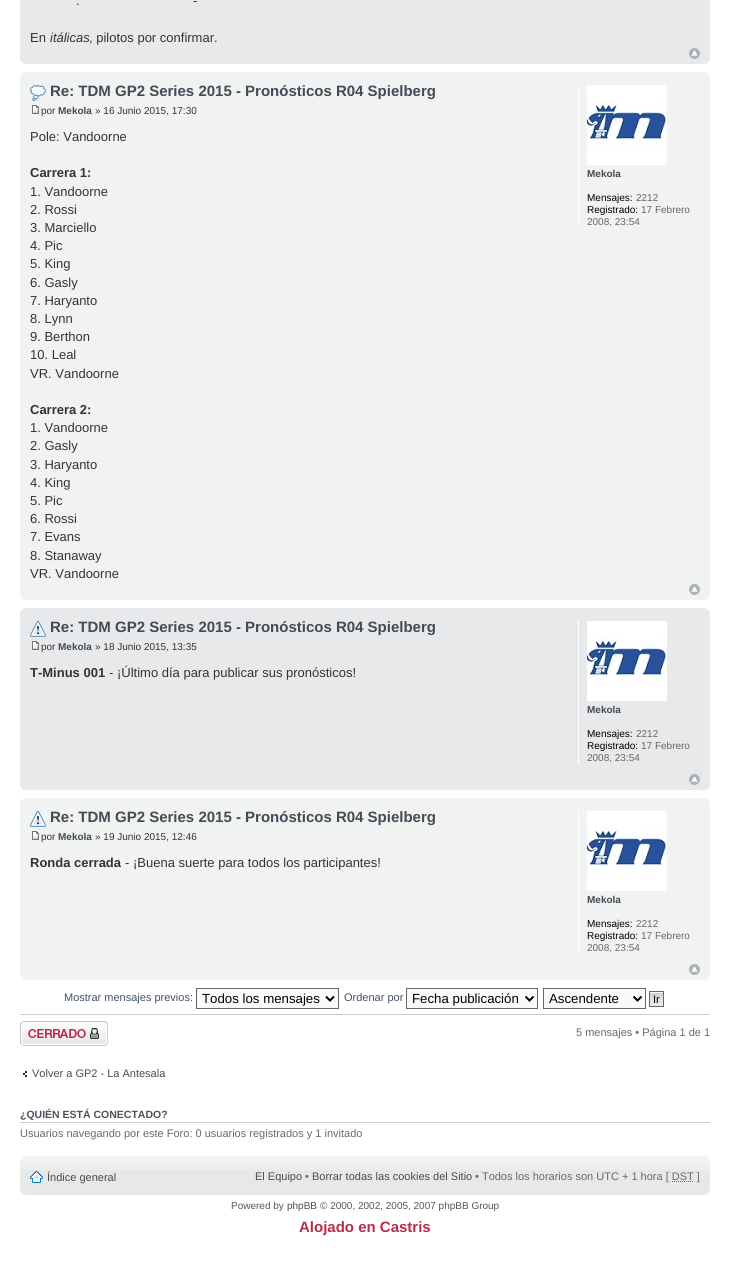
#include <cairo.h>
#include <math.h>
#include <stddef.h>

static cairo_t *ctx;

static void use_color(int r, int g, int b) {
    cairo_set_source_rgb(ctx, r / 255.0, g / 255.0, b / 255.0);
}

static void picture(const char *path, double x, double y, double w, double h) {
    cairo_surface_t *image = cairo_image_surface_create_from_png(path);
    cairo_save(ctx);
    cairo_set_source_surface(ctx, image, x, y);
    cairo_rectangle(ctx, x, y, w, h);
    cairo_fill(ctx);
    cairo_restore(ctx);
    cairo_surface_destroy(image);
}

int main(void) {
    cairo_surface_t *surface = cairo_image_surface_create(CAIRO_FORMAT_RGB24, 730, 1261);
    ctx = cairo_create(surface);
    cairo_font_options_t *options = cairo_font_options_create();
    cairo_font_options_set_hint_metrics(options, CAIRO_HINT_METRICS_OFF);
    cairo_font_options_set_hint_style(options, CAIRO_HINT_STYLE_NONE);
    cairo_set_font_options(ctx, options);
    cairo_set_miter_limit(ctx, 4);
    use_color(255, 255, 255);
    cairo_paint(ctx);
    use_color(232, 233, 235);
    cairo_rectangle(ctx, 20, 0, 690, 64);
    cairo_fill(ctx);
    cairo_select_font_face(ctx, "Liberation Sans", CAIRO_FONT_SLANT_NORMAL, CAIRO_FONT_WEIGHT_NORMAL);
    cairo_set_font_size(ctx, 13);
    use_color(51, 51, 51);
    cairo_move_to(ctx, 193, 5);
    cairo_show_text(ctx, "-");
    cairo_move_to(ctx, 76, 5);
    cairo_show_text(ctx, ".");
    cairo_move_to(ctx, 30, 42);
    cairo_show_text(ctx, "En");
    cairo_select_font_face(ctx, "Liberation Sans", CAIRO_FONT_SLANT_ITALIC, CAIRO_FONT_WEIGHT_NORMAL);
    cairo_move_to(ctx, 50, 42);
    cairo_show_text(ctx, "itálicas");
    cairo_select_font_face(ctx, "Liberation Sans", CAIRO_FONT_SLANT_NORMAL, CAIRO_FONT_WEIGHT_NORMAL);
    cairo_move_to(ctx, 89, 42);
    cairo_show_text(ctx, ", pilotos por confirmar.");
    picture("img1.png", 689, 48, 11, 11);
    picture("img2.png", 20, 59, 5, 5);
    picture("img3.png", 705, 59, 5, 5);
    use_color(241, 242, 242);
    cairo_rectangle(ctx, 20, 72, 690, 528);
    cairo_fill(ctx);
    picture("img4.png", 20, 72, 4, 4);
    picture("img5.png", 706, 72, 4, 4);
    picture("img6.png", 30, 85, 16, 16);
    cairo_select_font_face(ctx, "Liberation Sans", CAIRO_FONT_SLANT_NORMAL, CAIRO_FONT_WEIGHT_BOLD);
    cairo_set_font_size(ctx, 15);
    use_color(69, 75, 84);
    cairo_move_to(ctx, 50, 96);
    cairo_show_text(ctx, "Re: TDM GP2 Series 2015 - Pronósticos R04 Spielberg");
    picture("img7.png", 32, 105, 7, 9);
    cairo_select_font_face(ctx, "Liberation Sans", CAIRO_FONT_SLANT_NORMAL, CAIRO_FONT_WEIGHT_NORMAL);
    cairo_set_font_size(ctx, 10);
    use_color(51, 51, 51);
    cairo_move_to(ctx, 41, 114);
    cairo_show_text(ctx, "por");
    cairo_select_font_face(ctx, "Liberation Sans", CAIRO_FONT_SLANT_NORMAL, CAIRO_FONT_WEIGHT_BOLD);
    use_color(69, 75, 84);
    cairo_move_to(ctx, 58, 114);
    cairo_show_text(ctx, "Mekola");
    cairo_select_font_face(ctx, "Liberation Sans", CAIRO_FONT_SLANT_NORMAL, CAIRO_FONT_WEIGHT_NORMAL);
    use_color(51, 51, 51);
    cairo_move_to(ctx, 95, 114);
    cairo_show_text(ctx, "» 16 Junio 2015, 17:30");
    cairo_set_font_size(ctx, 13);
    cairo_move_to(ctx, 30, 141);
    cairo_show_text(ctx, "Pole: Vandoorne");
    cairo_select_font_face(ctx, "Liberation Sans", CAIRO_FONT_SLANT_NORMAL, CAIRO_FONT_WEIGHT_BOLD);
    cairo_move_to(ctx, 30, 177);
    cairo_show_text(ctx, "Carrera 1:");
    cairo_select_font_face(ctx, "Liberation Sans", CAIRO_FONT_SLANT_NORMAL, CAIRO_FONT_WEIGHT_NORMAL);
    cairo_move_to(ctx, 30, 196);
    cairo_show_text(ctx, "1. Vandoorne");
    cairo_move_to(ctx, 30, 214);
    cairo_show_text(ctx, "2. Rossi");
    cairo_move_to(ctx, 30, 232);
    cairo_show_text(ctx, "3. Marciello");
    cairo_move_to(ctx, 30, 250);
    cairo_show_text(ctx, "4. Pic");
    cairo_move_to(ctx, 30, 268);
    cairo_show_text(ctx, "5. King");
    cairo_move_to(ctx, 30, 287);
    cairo_show_text(ctx, "6. Gasly");
    cairo_move_to(ctx, 30, 305);
    cairo_show_text(ctx, "7. Haryanto");
    cairo_move_to(ctx, 30, 323);
    cairo_show_text(ctx, "8. Lynn");
    cairo_move_to(ctx, 30, 341);
    cairo_show_text(ctx, "9. Berthon");
    cairo_move_to(ctx, 30, 359);
    cairo_show_text(ctx, "10. Leal");
    cairo_move_to(ctx, 30, 378);
    cairo_show_text(ctx, "VR. Vandoorne");
    cairo_select_font_face(ctx, "Liberation Sans", CAIRO_FONT_SLANT_NORMAL, CAIRO_FONT_WEIGHT_BOLD);
    cairo_move_to(ctx, 30, 414);
    cairo_show_text(ctx, "Carrera 2:");
    cairo_select_font_face(ctx, "Liberation Sans", CAIRO_FONT_SLANT_NORMAL, CAIRO_FONT_WEIGHT_NORMAL);
    cairo_move_to(ctx, 30, 432);
    cairo_show_text(ctx, "1. Vandoorne");
    cairo_move_to(ctx, 30, 450);
    cairo_show_text(ctx, "2. Gasly");
    cairo_move_to(ctx, 30, 469);
    cairo_show_text(ctx, "3. Haryanto");
    cairo_move_to(ctx, 30, 487);
    cairo_show_text(ctx, "4. King");
    cairo_move_to(ctx, 30, 505);
    cairo_show_text(ctx, "5. Pic");
    cairo_move_to(ctx, 30, 523);
    cairo_show_text(ctx, "6. Rossi");
    cairo_move_to(ctx, 30, 541);
    cairo_show_text(ctx, "7. Evans");
    cairo_move_to(ctx, 30, 560);
    cairo_show_text(ctx, "8. Stanaway");
    cairo_move_to(ctx, 30, 578);
    cairo_show_text(ctx, "VR. Vandoorne");
    use_color(255, 255, 255);
    cairo_rectangle(ctx, 578, 85, 1, 143);
    cairo_fill(ctx);
    picture("img8.png", 587, 85, 80, 80);
    cairo_select_font_face(ctx, "Liberation Sans", CAIRO_FONT_SLANT_NORMAL, CAIRO_FONT_WEIGHT_BOLD);
    cairo_set_font_size(ctx, 10);
    use_color(69, 75, 84);
    cairo_move_to(ctx, 587, 177);
    cairo_show_text(ctx, "Mekola");
    cairo_select_font_face(ctx, "Liberation Sans", CAIRO_FONT_SLANT_NORMAL, CAIRO_FONT_WEIGHT_NORMAL);
    use_color(0, 0, 0);
    cairo_move_to(ctx, 587, 201);
    cairo_show_text(ctx, "Mensajes:");
    use_color(102, 102, 102);
    cairo_move_to(ctx, 636, 201);
    cairo_show_text(ctx, "2212");
    use_color(0, 0, 0);
    cairo_move_to(ctx, 587, 213);
    cairo_show_text(ctx, "Registrado:");
    use_color(102, 102, 102);
    cairo_move_to(ctx, 641, 213);
    cairo_show_text(ctx, "17 Febrero");
    cairo_move_to(ctx, 587, 225);
    cairo_show_text(ctx, "2008, 23:54");
    picture("img9.png", 689, 584, 11, 11);
    picture("img10.png", 20, 596, 4, 4);
    picture("img11.png", 706, 596, 4, 4);
    use_color(232, 233, 235);
    cairo_rectangle(ctx, 20, 608, 690, 182);
    cairo_fill(ctx);
    picture("img12.png", 20, 608, 5, 8);
    picture("img13.png", 705, 608, 5, 8);
    picture("img14.png", 30, 621, 16, 16);
    cairo_select_font_face(ctx, "Liberation Sans", CAIRO_FONT_SLANT_NORMAL, CAIRO_FONT_WEIGHT_BOLD);
    cairo_set_font_size(ctx, 15);
    use_color(69, 75, 84);
    cairo_move_to(ctx, 50, 632);
    cairo_show_text(ctx, "Re: TDM GP2 Series 2015 - Pronósticos R04 Spielberg");
    picture("img15.png", 32, 641, 7, 9);
    cairo_select_font_face(ctx, "Liberation Sans", CAIRO_FONT_SLANT_NORMAL, CAIRO_FONT_WEIGHT_NORMAL);
    cairo_set_font_size(ctx, 10);
    use_color(51, 51, 51);
    cairo_move_to(ctx, 41, 650);
    cairo_show_text(ctx, "por");
    cairo_select_font_face(ctx, "Liberation Sans", CAIRO_FONT_SLANT_NORMAL, CAIRO_FONT_WEIGHT_BOLD);
    use_color(69, 75, 84);
    cairo_move_to(ctx, 58, 650);
    cairo_show_text(ctx, "Mekola");
    cairo_select_font_face(ctx, "Liberation Sans", CAIRO_FONT_SLANT_NORMAL, CAIRO_FONT_WEIGHT_NORMAL);
    use_color(51, 51, 51);
    cairo_move_to(ctx, 95, 650);
    cairo_show_text(ctx, "» 18 Junio 2015, 13:35");
    cairo_select_font_face(ctx, "Liberation Sans", CAIRO_FONT_SLANT_NORMAL, CAIRO_FONT_WEIGHT_BOLD);
    cairo_set_font_size(ctx, 13);
    cairo_move_to(ctx, 30, 677);
    cairo_show_text(ctx, "T-Minus 001");
    cairo_select_font_face(ctx, "Liberation Sans", CAIRO_FONT_SLANT_NORMAL, CAIRO_FONT_WEIGHT_NORMAL);
    cairo_move_to(ctx, 109, 677);
    cairo_show_text(ctx, "- ¡Último día para publicar sus pronósticos!");
    use_color(255, 255, 255);
    cairo_rectangle(ctx, 578, 621, 1, 143);
    cairo_fill(ctx);
    picture("img8.png", 587, 621, 80, 80);
    cairo_select_font_face(ctx, "Liberation Sans", CAIRO_FONT_SLANT_NORMAL, CAIRO_FONT_WEIGHT_BOLD);
    cairo_set_font_size(ctx, 10);
    use_color(69, 75, 84);
    cairo_move_to(ctx, 587, 713);
    cairo_show_text(ctx, "Mekola");
    cairo_select_font_face(ctx, "Liberation Sans", CAIRO_FONT_SLANT_NORMAL, CAIRO_FONT_WEIGHT_NORMAL);
    use_color(0, 0, 0);
    cairo_move_to(ctx, 587, 737);
    cairo_show_text(ctx, "Mensajes:");
    use_color(102, 102, 102);
    cairo_move_to(ctx, 636, 737);
    cairo_show_text(ctx, "2212");
    use_color(0, 0, 0);
    cairo_move_to(ctx, 587, 749);
    cairo_show_text(ctx, "Registrado:");
    use_color(102, 102, 102);
    cairo_move_to(ctx, 641, 749);
    cairo_show_text(ctx, "17 Febrero");
    cairo_move_to(ctx, 587, 761);
    cairo_show_text(ctx, "2008, 23:54");
    picture("img1.png", 689, 774, 11, 11);
    picture("img2.png", 20, 785, 5, 5);
    picture("img3.png", 705, 785, 5, 5);
    use_color(241, 242, 242);
    cairo_rectangle(ctx, 20, 798, 690, 182);
    cairo_fill(ctx);
    picture("img4.png", 20, 798, 4, 4);
    picture("img5.png", 706, 798, 4, 4);
    picture("img16.png", 30, 811, 16, 16);
    cairo_select_font_face(ctx, "Liberation Sans", CAIRO_FONT_SLANT_NORMAL, CAIRO_FONT_WEIGHT_BOLD);
    cairo_set_font_size(ctx, 15);
    use_color(69, 75, 84);
    cairo_move_to(ctx, 50, 822);
    cairo_show_text(ctx, "Re: TDM GP2 Series 2015 - Pronósticos R04 Spielberg");
    picture("img7.png", 32, 831, 7, 9);
    cairo_select_font_face(ctx, "Liberation Sans", CAIRO_FONT_SLANT_NORMAL, CAIRO_FONT_WEIGHT_NORMAL);
    cairo_set_font_size(ctx, 10);
    use_color(51, 51, 51);
    cairo_move_to(ctx, 41, 840);
    cairo_show_text(ctx, "por");
    cairo_select_font_face(ctx, "Liberation Sans", CAIRO_FONT_SLANT_NORMAL, CAIRO_FONT_WEIGHT_BOLD);
    use_color(69, 75, 84);
    cairo_move_to(ctx, 58, 840);
    cairo_show_text(ctx, "Mekola");
    cairo_select_font_face(ctx, "Liberation Sans", CAIRO_FONT_SLANT_NORMAL, CAIRO_FONT_WEIGHT_NORMAL);
    use_color(51, 51, 51);
    cairo_move_to(ctx, 95, 840);
    cairo_show_text(ctx, "» 19 Junio 2015, 12:46");
    cairo_select_font_face(ctx, "Liberation Sans", CAIRO_FONT_SLANT_NORMAL, CAIRO_FONT_WEIGHT_BOLD);
    cairo_set_font_size(ctx, 13);
    cairo_move_to(ctx, 30, 867);
    cairo_show_text(ctx, "Ronda cerrada");
    cairo_select_font_face(ctx, "Liberation Sans", CAIRO_FONT_SLANT_NORMAL, CAIRO_FONT_WEIGHT_NORMAL);
    cairo_move_to(ctx, 125, 867);
    cairo_show_text(ctx, "- ¡Buena suerte para todos los participantes!");
    use_color(255, 255, 255);
    cairo_rectangle(ctx, 578, 811, 1, 143);
    cairo_fill(ctx);
    picture("img8.png", 587, 811, 80, 80);
    cairo_select_font_face(ctx, "Liberation Sans", CAIRO_FONT_SLANT_NORMAL, CAIRO_FONT_WEIGHT_BOLD);
    cairo_set_font_size(ctx, 10);
    use_color(69, 75, 84);
    cairo_move_to(ctx, 587, 903);
    cairo_show_text(ctx, "Mekola");
    cairo_select_font_face(ctx, "Liberation Sans", CAIRO_FONT_SLANT_NORMAL, CAIRO_FONT_WEIGHT_NORMAL);
    use_color(0, 0, 0);
    cairo_move_to(ctx, 587, 927);
    cairo_show_text(ctx, "Mensajes:");
    use_color(102, 102, 102);
    cairo_move_to(ctx, 636, 927);
    cairo_show_text(ctx, "2212");
    use_color(0, 0, 0);
    cairo_move_to(ctx, 587, 939);
    cairo_show_text(ctx, "Registrado:");
    use_color(102, 102, 102);
    cairo_move_to(ctx, 641, 939);
    cairo_show_text(ctx, "17 Febrero");
    cairo_move_to(ctx, 587, 951);
    cairo_show_text(ctx, "2008, 23:54");
    picture("img9.png", 689, 964, 11, 11);
    picture("img10.png", 20, 976, 4, 4);
    picture("img11.png", 706, 976, 4, 4);
    cairo_set_font_size(ctx, 11);
    use_color(66, 80, 103);
    cairo_move_to(ctx, 64, 1001);
    cairo_show_text(ctx, "Mostrar mensajes previos:");
    use_color(250, 250, 250);
    cairo_rectangle(ctx, 196.5, 988.5, 142, 20);
    cairo_fill_preserve(ctx);
    use_color(102, 102, 102);
    cairo_set_line_width(ctx, 1);
    cairo_stroke(ctx);
    cairo_new_path(ctx);
    cairo_move_to(ctx, 326, 996.5);
    cairo_line_to(ctx, 330, 1000.5);
    cairo_line_to(ctx, 334, 996.5);
    use_color(0, 0, 0);
    cairo_set_line_width(ctx, 2);
    cairo_stroke(ctx);
    cairo_set_font_size(ctx, 13.25);
    cairo_move_to(ctx, 202, 1003);
    cairo_show_text(ctx, "Todos los mensajes");
    cairo_set_font_size(ctx, 11);
    use_color(66, 80, 103);
    cairo_move_to(ctx, 344, 1001);
    cairo_show_text(ctx, "Ordenar por");
    use_color(250, 250, 250);
    cairo_rectangle(ctx, 406.5, 988.5, 131, 20);
    cairo_fill_preserve(ctx);
    use_color(102, 102, 102);
    cairo_set_line_width(ctx, 1);
    cairo_stroke(ctx);
    cairo_new_path(ctx);
    cairo_move_to(ctx, 525.5, 996.5);
    cairo_line_to(ctx, 529.5, 1000.5);
    cairo_line_to(ctx, 533.5, 996.5);
    use_color(0, 0, 0);
    cairo_set_line_width(ctx, 2);
    cairo_stroke(ctx);
    cairo_set_font_size(ctx, 13.25);
    cairo_move_to(ctx, 412, 1003);
    cairo_show_text(ctx, "Fecha publicación");
    use_color(250, 250, 250);
    cairo_rectangle(ctx, 543.5, 988.5, 102, 20);
    cairo_fill_preserve(ctx);
    use_color(102, 102, 102);
    cairo_set_line_width(ctx, 1);
    cairo_stroke(ctx);
    cairo_new_path(ctx);
    cairo_move_to(ctx, 633.5, 996.5);
    cairo_line_to(ctx, 637.5, 1000.5);
    cairo_line_to(ctx, 641.5, 996.5);
    use_color(0, 0, 0);
    cairo_set_line_width(ctx, 2);
    cairo_stroke(ctx);
    cairo_move_to(ctx, 549, 1003);
    cairo_show_text(ctx, "Ascendente");
    picture("img17.png", 650, 992, 13, 14);
    cairo_rectangle(ctx, 649.5, 991.5, 14, 15);
    use_color(102, 102, 102);
    cairo_set_line_width(ctx, 1);
    cairo_stroke(ctx);
    cairo_set_font_size(ctx, 11);
    use_color(0, 0, 0);
    cairo_move_to(ctx, 653, 1003);
    cairo_show_text(ctx, "Ir");
    use_color(204, 204, 204);
    cairo_rectangle(ctx, 20, 1014, 690, 1);
    cairo_fill(ctx);
    picture("img18.png", 20, 1021, 88, 25);
    use_color(104, 105, 109);
    cairo_move_to(ctx, 576, 1036);
    cairo_show_text(ctx, "5 mensajes • Página 1 de 1");
    picture("img19.png", 23, 1071, 4, 6);
    use_color(69, 75, 84);
    cairo_move_to(ctx, 32, 1077);
    cairo_show_text(ctx, "Volver a GP2 - La Antesala");
    use_color(204, 204, 204);
    cairo_rectangle(ctx, 20, 1122, 690, 1);
    cairo_fill(ctx);
    cairo_select_font_face(ctx, "Liberation Sans", CAIRO_FONT_SLANT_NORMAL, CAIRO_FONT_WEIGHT_BOLD);
    cairo_set_font_size(ctx, 10.5);
    use_color(76, 82, 93);
    cairo_move_to(ctx, 20, 1118);
    cairo_show_text(ctx, "¿QUIÉN ESTÁ CONECTADO?");
    cairo_select_font_face(ctx, "Liberation Sans", CAIRO_FONT_SLANT_NORMAL, CAIRO_FONT_WEIGHT_NORMAL);
    cairo_set_font_size(ctx, 11);
    use_color(104, 105, 109);
    cairo_move_to(ctx, 20, 1137);
    cairo_show_text(ctx, "Usuarios navegando por este Foro: 0 usuarios registrados y 1 invitado");
    use_color(232, 232, 232);
    cairo_rectangle(ctx, 20, 1156, 690, 39);
    cairo_fill(ctx);
    picture("img20.png", 20, 1156, 690, 14);
    picture("img21.png", 20, 1156, 4, 4);
    picture("img22.png", 706, 1156, 4, 4);
    picture("img23.png", 30, 1171, 13, 12);
    use_color(69, 75, 84);
    cairo_move_to(ctx, 47, 1181);
    cairo_show_text(ctx, "Índice general");
    cairo_move_to(ctx, 255, 1180);
    cairo_show_text(ctx, "El Equipo");
    use_color(104, 105, 109);
    cairo_move_to(ctx, 305, 1180);
    cairo_show_text(ctx, "•");
    use_color(69, 75, 84);
    cairo_move_to(ctx, 312, 1180);
    cairo_show_text(ctx, "Borrar todas las cookies del Sitio");
    use_color(104, 105, 109);
    cairo_move_to(ctx, 475, 1180);
    cairo_show_text(ctx, "• Todos los horarios son UTC + 1 hora [ DST ]");
    cairo_new_path(ctx);
    cairo_move_to(ctx, 672, 1181.5);
    cairo_line_to(ctx, 694, 1181.5);
    cairo_set_dash(ctx, (double[]){1, 1}, 2, 0);
    cairo_stroke(ctx);
    picture("img24.png", 20, 1190, 5, 5);
    picture("img25.png", 705, 1190, 5, 5);
    cairo_set_font_size(ctx, 10);
    use_color(85, 85, 85);
    cairo_move_to(ctx, 231, 1209);
    cairo_show_text(ctx, "Powered by");
    use_color(69, 75, 84);
    cairo_move_to(ctx, 287, 1209);
    cairo_show_text(ctx, "phpBB");
    use_color(85, 85, 85);
    cairo_move_to(ctx, 320, 1209);
    cairo_show_text(ctx, "© 2000, 2002, 2005, 2007 phpBB Group");
    cairo_select_font_face(ctx, "Liberation Sans", CAIRO_FONT_SLANT_NORMAL, CAIRO_FONT_WEIGHT_BOLD);
    cairo_set_font_size(ctx, 15);
    use_color(188, 42, 77);
    cairo_move_to(ctx, 299, 1232);
    cairo_show_text(ctx, "Alojado en Castris");
    cairo_surface_write_to_png(surface, "result.png");
    cairo_font_options_destroy(options);
    cairo_destroy(ctx);
    cairo_surface_destroy(surface);
    return 0;
}
